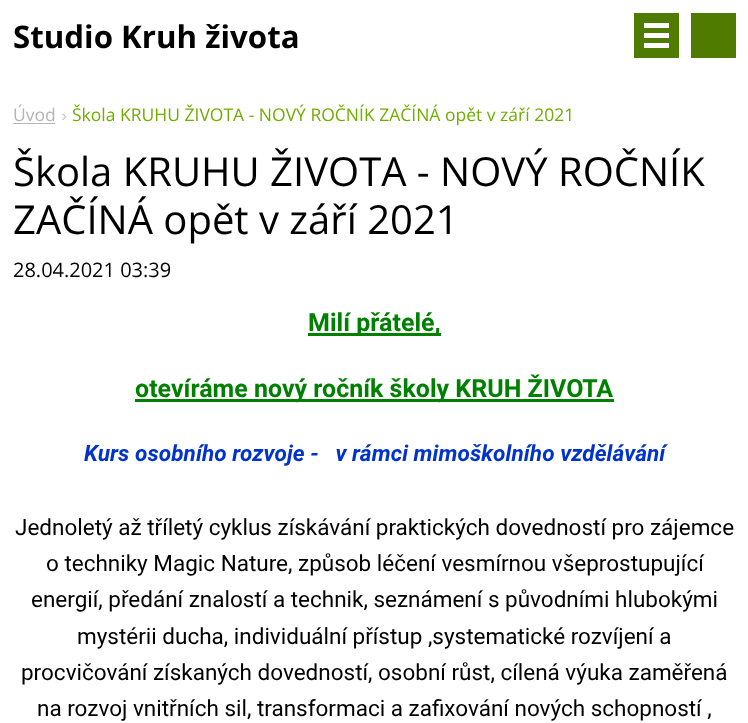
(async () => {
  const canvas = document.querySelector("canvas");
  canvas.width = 748;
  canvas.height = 723;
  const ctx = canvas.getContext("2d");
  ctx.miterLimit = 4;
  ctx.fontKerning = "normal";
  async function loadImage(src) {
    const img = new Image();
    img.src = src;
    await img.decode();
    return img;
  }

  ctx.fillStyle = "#ffffff";
  ctx.fillRect(0, 0, 748, 723);
  for (const [x, y, w, h, color] of [
    [634, 13, 45, 45, "#4e7b00"],
    [644, 23, 25, 5, "#ffffff"],
    [644, 43, 25, 5, "#ffffff"],
    [644, 33, 25, 5, "#ffffff"],
    [691, 13, 45, 45, "#4e7b00"],
    [13, 123, 42, 1, "#b5b5b5"],
  ]) {
    ctx.fillStyle = color;
    ctx.fillRect(x, y, w, h);
  }
  ctx.drawImage(await loadImage("img/1.png"), 62, 113, 5, 7);
  ctx.fillStyle = "#008000";
  ctx.fillRect(308, 333, 133, 3);
  ctx.fillRect(135, 399, 479, 3);
  ctx.font = "bold 31.25px Open Sans";
  ctx.fillStyle = "#000000";
  ctx.fillText("Studio Kruh života", 13, 48);
  ctx.font = "17.5px Open Sans";
  ctx.fillStyle = "#b5b5b5";
  ctx.fillText("Úvod", 13, 121);
  ctx.fillStyle = "#6fae00";
  ctx.fillText("Škola KRUHU ŽIVOTA - NOVÝ ROČNÍK ZAČÍNÁ opět v září 2021", 72, 121);
  ctx.font = "40px Open Sans";
  ctx.fillStyle = "#000000";
  ctx.fillText("Škola KRUHU ŽIVOTA - NOVÝ ROČNÍK", 13, 186);
  ctx.fillText("ZAČÍNÁ opět v září 2021", 13, 234);
  ctx.font = "20px Open Sans";
  ctx.fillText("28.04.2021 03:39", 13, 277);
  ctx.font = "bold 25px Roboto";
  ctx.fillStyle = "#008000";
  ctx.fillText("Milí přátelé,", 308, 331);
  ctx.fillText("otevíráme nový ročník školy KRUH ŽIVOTA", 135, 397);
  ctx.font = "italic bold 22.5px Roboto";
  ctx.fillStyle = "#0033cc";
  ctx.fillText("Kurs osobního rozvoje -   v rámci mimoškolního vzdělávání", 84, 461);
  ctx.font = "22.5px Roboto";
  ctx.fillStyle = "#000000";
  for (const [text, x, y] of [
    ["Jednoletý až tříletý cyklus získávání praktických dovedností pro zájemce", 15, 535],
    ["o techniky Magic Nature, způsob léčení vesmírnou všeprostupující", 46, 571],
    ["energií, předání znalostí a technik, seznámení s původními hlubokými", 31, 607],
    ["mystérii ducha, individuální přístup ,systematické rozvíjení a", 77, 644],
    ["procvičování získaných dovedností, osobní růst, cílená výuka zaměřená", 21, 680],
    ["na rozvoj vnitřních sil, transformaci a zafixování nových schopností ,", 37, 716],
  ]) {
    ctx.fillText(text, x, y);
  }
})();
